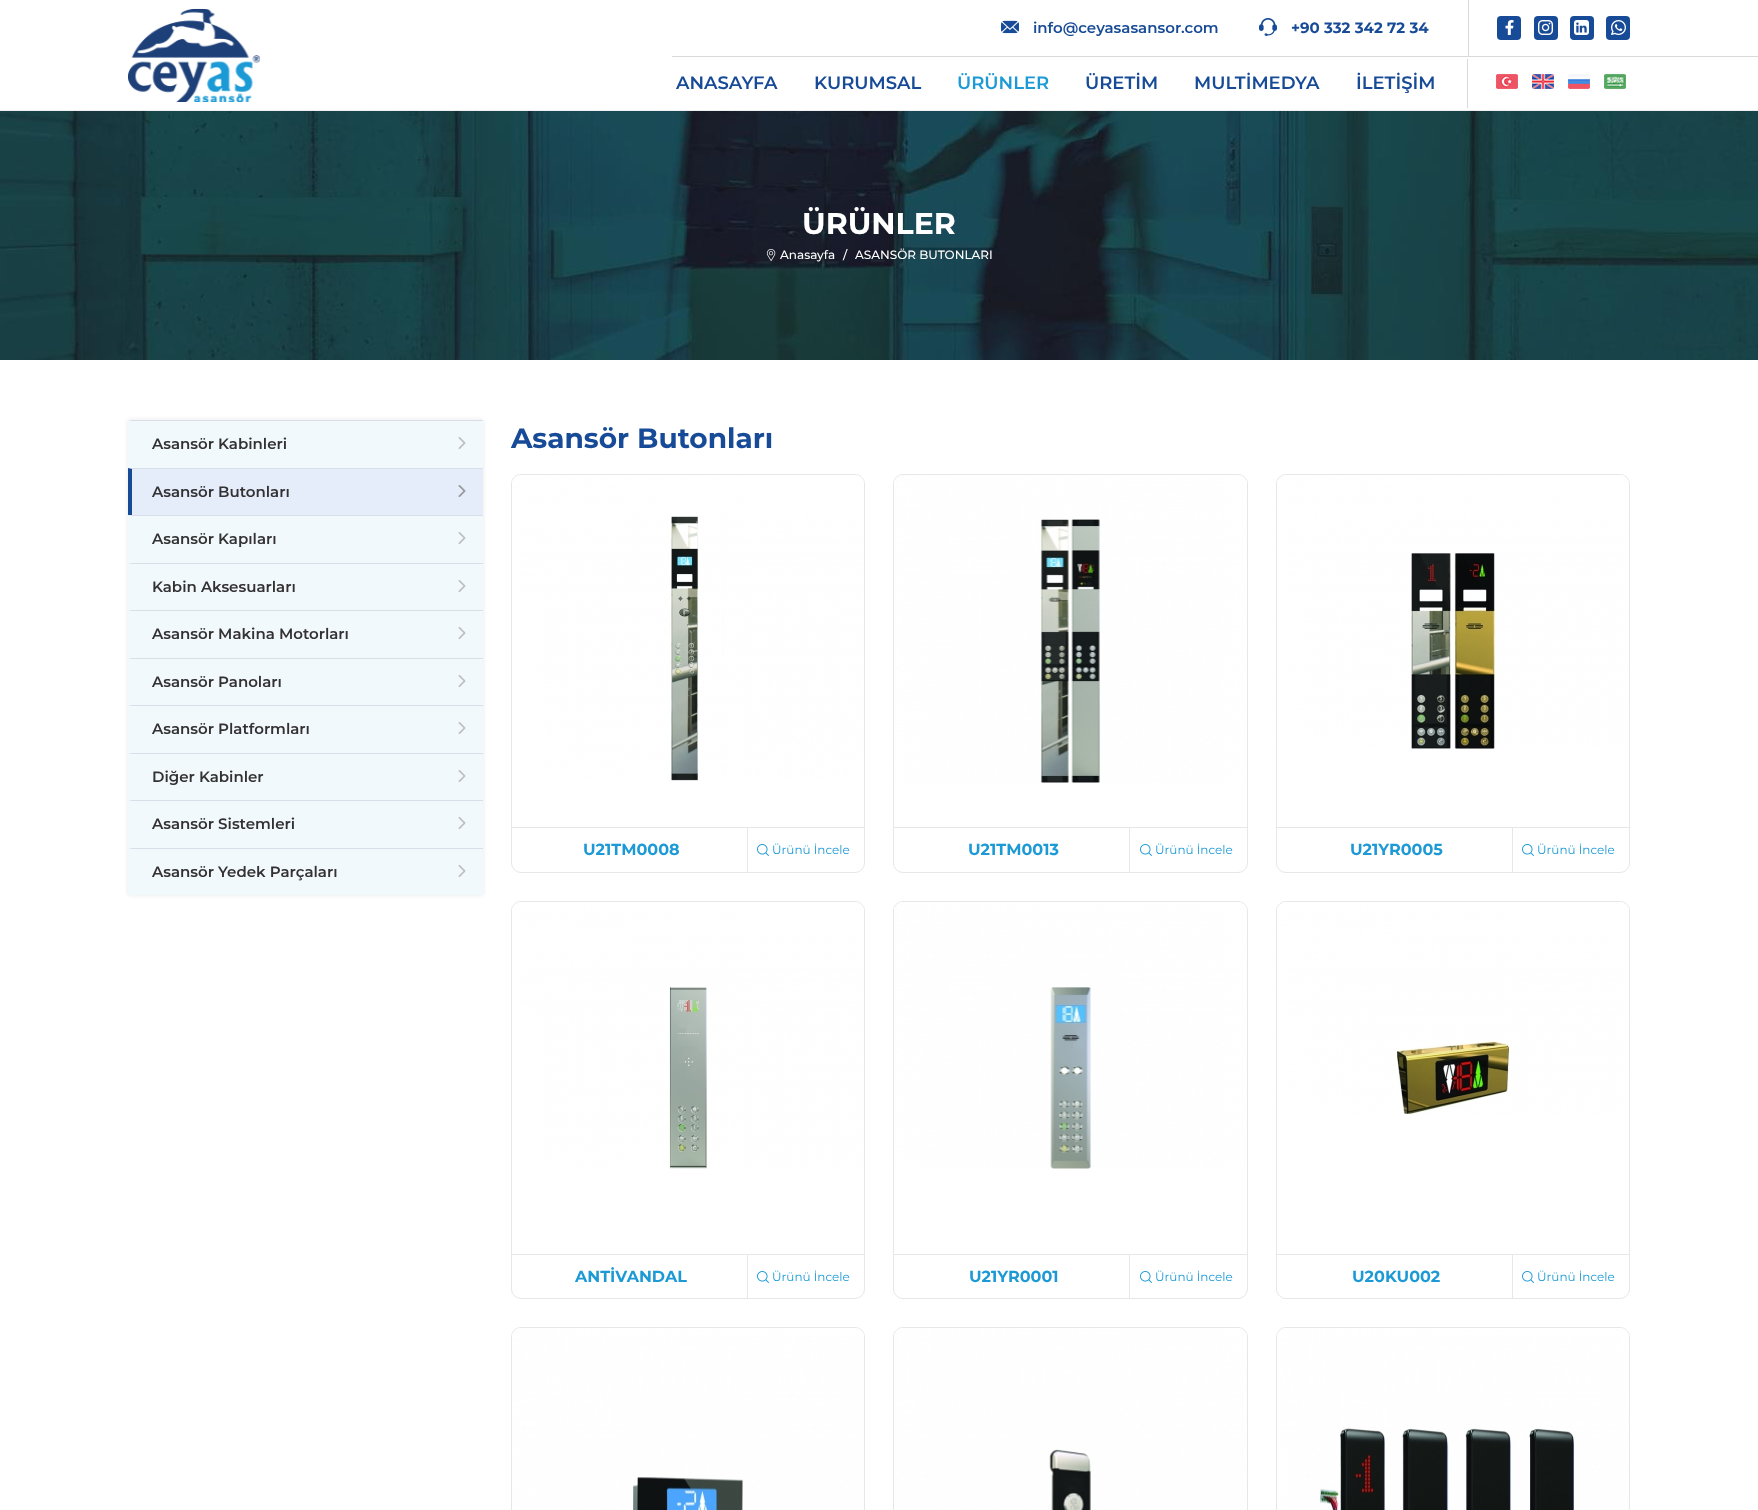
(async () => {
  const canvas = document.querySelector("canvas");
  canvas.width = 1758;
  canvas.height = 1510;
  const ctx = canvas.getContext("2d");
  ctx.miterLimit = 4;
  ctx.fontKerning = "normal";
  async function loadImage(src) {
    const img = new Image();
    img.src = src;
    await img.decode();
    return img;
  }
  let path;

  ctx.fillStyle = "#ffffff";
  ctx.fillRect(0, 0, 1758, 1510);
  ctx.fillStyle = "#efeff0";
  ctx.fillRect(0, 110, 1758, 1);
  ctx.drawImage(await loadImage("img/1.png"), 128, 8, 132, 94);
  ctx.drawImage(await loadImage("img/2.png"), 1001, 20, 18, 14);
  ctx.drawImage(await loadImage("img/3.png"), 1259, 18, 18, 18);
  ctx.fillStyle = "#d9d9da";
  ctx.fillRect(1468, 0, 1, 56);
  ctx.fillStyle = "#184b97";
  ctx.beginPath();
  ctx.roundRect(1497, 16, 24, 24, 4);
  ctx.fill();
  ctx.drawImage(await loadImage("img/4.png"), 1505, 20, 9, 15);
  ctx.beginPath();
  ctx.roundRect(1534, 16, 24, 24, 4);
  ctx.fill();
  ctx.drawImage(await loadImage("img/5.png"), 1538, 20, 15, 15);
  ctx.beginPath();
  ctx.roundRect(1570, 16, 24, 24, 4);
  ctx.fill();
  ctx.drawImage(await loadImage("img/6.png"), 1574, 20, 15, 15);
  ctx.beginPath();
  ctx.roundRect(1606, 16, 24, 24, 4);
  ctx.fill();
  ctx.drawImage(await loadImage("img/7.png"), 1611, 20, 15, 15);
  ctx.fillStyle = "#d9d9da";
  ctx.fillRect(672, 56, 1086, 1);
  ctx.fillRect(1467, 59, 1, 49);
  ctx.drawImage(await loadImage("img/8.png"), 1496, 74, 22, 15);
  ctx.drawImage(await loadImage("img/9.png"), 1532, 74, 22, 15);
  ctx.drawImage(await loadImage("img/10.png"), 1568, 74, 22, 15);
  ctx.drawImage(await loadImage("img/11.png"), 1604, 74, 22, 15);
  ctx.drawImage(await loadImage("img/12.png"), 0, 111, 1758, 249);
  ctx.drawImage(await loadImage("img/13.png"), 766, 249, 10, 12);
  ctx.fillStyle = "#e6e6e6";
  ctx.filter = "blur(2px)";
  ctx.beginPath();
  ctx.rect(128, 420, 355, 475);
  ctx.fill();
  ctx.filter = "none";
  ctx.fillStyle = "#f2f9fd";
  ctx.fillRect(128, 420, 355, 48);
  ctx.fillStyle = "#dadee8";
  path = new Path2D("M128 420H483V421H132Z");
  ctx.fill(path);
  ctx.drawImage(await loadImage("img/14.png"), 458, 437, 8, 12);
  ctx.fillStyle = "#e5edfb";
  ctx.fillRect(128, 468, 355, 47);
  ctx.fillStyle = "#dadee8";
  path = new Path2D("M128 468H483V469H132Z");
  ctx.fill(path);
  ctx.fillStyle = "#184b97";
  path = new Path2D("M128 515V468L132 469V515Z");
  ctx.fill(path);
  ctx.drawImage(await loadImage("img/15.png"), 458, 485, 8, 12);
  ctx.fillStyle = "#f2f9fd";
  ctx.fillRect(128, 515, 355, 380);
  ctx.fillStyle = "#dadee8";
  path = new Path2D("M128 515H483V516H132Z");
  ctx.fill(path);
  ctx.drawImage(await loadImage("img/14.png"), 458, 532, 8, 12);
  path = new Path2D("M128 563H483V564H132Z");
  ctx.fill(path);
  ctx.drawImage(await loadImage("img/14.png"), 458, 580, 8, 12);
  path = new Path2D("M128 610H483V611H132Z");
  ctx.fill(path);
  ctx.drawImage(await loadImage("img/14.png"), 458, 627, 8, 12);
  path = new Path2D("M128 658H483V659H132Z");
  ctx.fill(path);
  ctx.drawImage(await loadImage("img/14.png"), 458, 675, 8, 12);
  path = new Path2D("M128 705H483V706H132Z");
  ctx.fill(path);
  ctx.drawImage(await loadImage("img/14.png"), 458, 722, 8, 12);
  path = new Path2D("M128 753H483V754H132Z");
  ctx.fill(path);
  ctx.drawImage(await loadImage("img/14.png"), 458, 770, 8, 12);
  path = new Path2D("M128 800H483V801H132Z");
  ctx.fill(path);
  ctx.drawImage(await loadImage("img/14.png"), 458, 817, 8, 12);
  path = new Path2D("M128 848H483V849H132Z");
  ctx.fill(path);
  ctx.drawImage(await loadImage("img/14.png"), 458, 865, 8, 12);
  ctx.beginPath();
  ctx.roundRect(511.5, 474.5, 353, 398, 9.5);
  ctx.strokeStyle = "#e6e7e8";
  ctx.stroke();
  ctx.drawImage(await loadImage("img/16.png"), 512, 475, 352, 306);
  ctx.fillStyle = "#e6e7e8";
  ctx.fillRect(512, 827, 352, 1);
  ctx.fillRect(747, 828, 1, 44);
  ctx.drawImage(await loadImage("img/17.png"), 757, 844, 12, 12);
  ctx.beginPath();
  ctx.roundRect(893.5, 474.5, 354, 398, 9.5);
  ctx.stroke();
  ctx.drawImage(await loadImage("img/18.png"), 894, 475, 353, 308);
  ctx.fillRect(894, 827, 353, 1);
  ctx.fillRect(1129, 828, 1, 44);
  ctx.drawImage(await loadImage("img/17.png"), 1140, 844, 12, 12);
  ctx.beginPath();
  ctx.roundRect(1276.5, 474.5, 353, 398, 9.5);
  ctx.stroke();
  ctx.drawImage(await loadImage("img/19.png"), 1277, 475, 352, 274);
  ctx.fillRect(1277, 827, 352, 1);
  ctx.fillRect(1512, 828, 1, 44);
  ctx.drawImage(await loadImage("img/17.png"), 1522, 844, 12, 12);
  ctx.beginPath();
  ctx.roundRect(511.5, 901.5, 353, 397, 9.5);
  ctx.stroke();
  ctx.drawImage(await loadImage("img/20.png"), 512, 902, 352, 267);
  ctx.fillRect(512, 1254, 352, 1);
  ctx.fillRect(747, 1255, 1, 43);
  ctx.drawImage(await loadImage("img/17.png"), 757, 1271, 12, 12);
  ctx.beginPath();
  ctx.roundRect(893.5, 901.5, 354, 397, 9.5);
  ctx.stroke();
  ctx.drawImage(await loadImage("img/21.png"), 894, 902, 353, 267);
  ctx.fillRect(894, 1254, 353, 1);
  ctx.fillRect(1129, 1255, 1, 43);
  ctx.drawImage(await loadImage("img/17.png"), 1140, 1271, 12, 12);
  ctx.beginPath();
  ctx.roundRect(1276.5, 901.5, 353, 397, 9.5);
  ctx.stroke();
  ctx.drawImage(await loadImage("img/22.png"), 1277, 902, 352, 213);
  ctx.fillRect(1277, 1254, 352, 1);
  ctx.fillRect(1512, 1255, 1, 43);
  ctx.drawImage(await loadImage("img/17.png"), 1522, 1271, 12, 12);
  ctx.beginPath();
  ctx.roundRect(511.5, 1327.5, 353, 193, 9.5);
  ctx.stroke();
  ctx.drawImage(await loadImage("img/23.png"), 512, 1328, 352, 182);
  ctx.beginPath();
  ctx.roundRect(893.5, 1327.5, 354, 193, 9.5);
  ctx.stroke();
  ctx.drawImage(await loadImage("img/24.png"), 894, 1328, 353, 182);
  ctx.beginPath();
  ctx.roundRect(1276.5, 1327.5, 353, 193, 9.5);
  ctx.stroke();
  ctx.drawImage(await loadImage("img/25.png"), 1277, 1328, 352, 182);
  ctx.font = "600 15px Montserrat";
  ctx.fillStyle = "#184b97";
  ctx.fillText("info@ceyasasansor.com", 1033, 33);
  ctx.font = "bold 15px Montserrat";
  ctx.fillText("+90 332 342 72 34", 1291, 33);
  ctx.font = "600 18px Montserrat";
  ctx.fillText("ANASAYFA", 676, 89);
  ctx.fillText("KURUMSAL", 814, 89);
  ctx.fillStyle = "#1d9ad6";
  ctx.fillText("ÜRÜNLER", 957, 89);
  ctx.fillStyle = "#184b97";
  for (const [text, x, y] of [
    ["ÜRETİM", 1085, 89],
    ["MULTİMEDYA", 1194, 89],
    ["İLETİŞİM", 1356, 89],
  ]) {
    ctx.fillText(text, x, y);
  }
  ctx.font = "bold 30px Montserrat";
  ctx.fillStyle = "#ffffff";
  ctx.fillText("ÜRÜNLER", 802, 234);
  ctx.font = "500 12px Montserrat";
  for (const [text, x, y] of [
    ["Anasayfa", 780, 259],
    ["/", 843, 259],
    ["ASANSÖR BUTONLARI", 855, 259],
  ]) {
    ctx.fillText(text, x, y);
  }
  ctx.font = "600 15px Montserrat";
  ctx.fillStyle = "#333132";
  for (const [text, x, y] of [
    ["Asansör Kabinleri", 152, 449],
    ["Asansör Butonları", 152, 497],
    ["Asansör Kapıları", 152, 544],
    ["Kabin Aksesuarları", 152, 592],
    ["Asansör Makina Motorları", 152, 639],
    ["Asansör Panoları", 152, 687],
    ["Asansör Platformları", 152, 734],
    ["Diğer Kabinler", 152, 782],
    ["Asansör Sistemleri", 152, 829],
    ["Asansör Yedek Parçaları", 152, 877],
  ]) {
    ctx.fillText(text, x, y);
  }
  ctx.font = "bold 28px Montserrat";
  ctx.fillStyle = "#184b97";
  ctx.fillText("Asansör Butonları", 511, 448);
  ctx.font = "bold 16px Montserrat";
  ctx.fillStyle = "#1d9ad6";
  ctx.fillText("U21TM0008", 583, 855);
  ctx.font = "12px Montserrat";
  ctx.fillText("Ürünü İncele", 772, 854);
  ctx.font = "bold 16px Montserrat";
  ctx.fillText("U21TM0013", 968, 855);
  ctx.font = "12px Montserrat";
  ctx.fillText("Ürünü İncele", 1155, 854);
  ctx.font = "bold 16px Montserrat";
  ctx.fillText("U21YR0005", 1350, 855);
  ctx.font = "12px Montserrat";
  ctx.fillText("Ürünü İncele", 1537, 854);
  ctx.font = "bold 16px Montserrat";
  ctx.fillText("ANTİVANDAL", 575, 1282);
  ctx.font = "12px Montserrat";
  ctx.fillText("Ürünü İncele", 772, 1281);
  ctx.font = "bold 16px Montserrat";
  ctx.fillText("U21YR0001", 969, 1282);
  ctx.font = "12px Montserrat";
  ctx.fillText("Ürünü İncele", 1155, 1281);
  ctx.font = "bold 16px Montserrat";
  ctx.fillText("U20KU002", 1352, 1282);
  ctx.font = "12px Montserrat";
  ctx.fillText("Ürünü İncele", 1537, 1281);
})();
